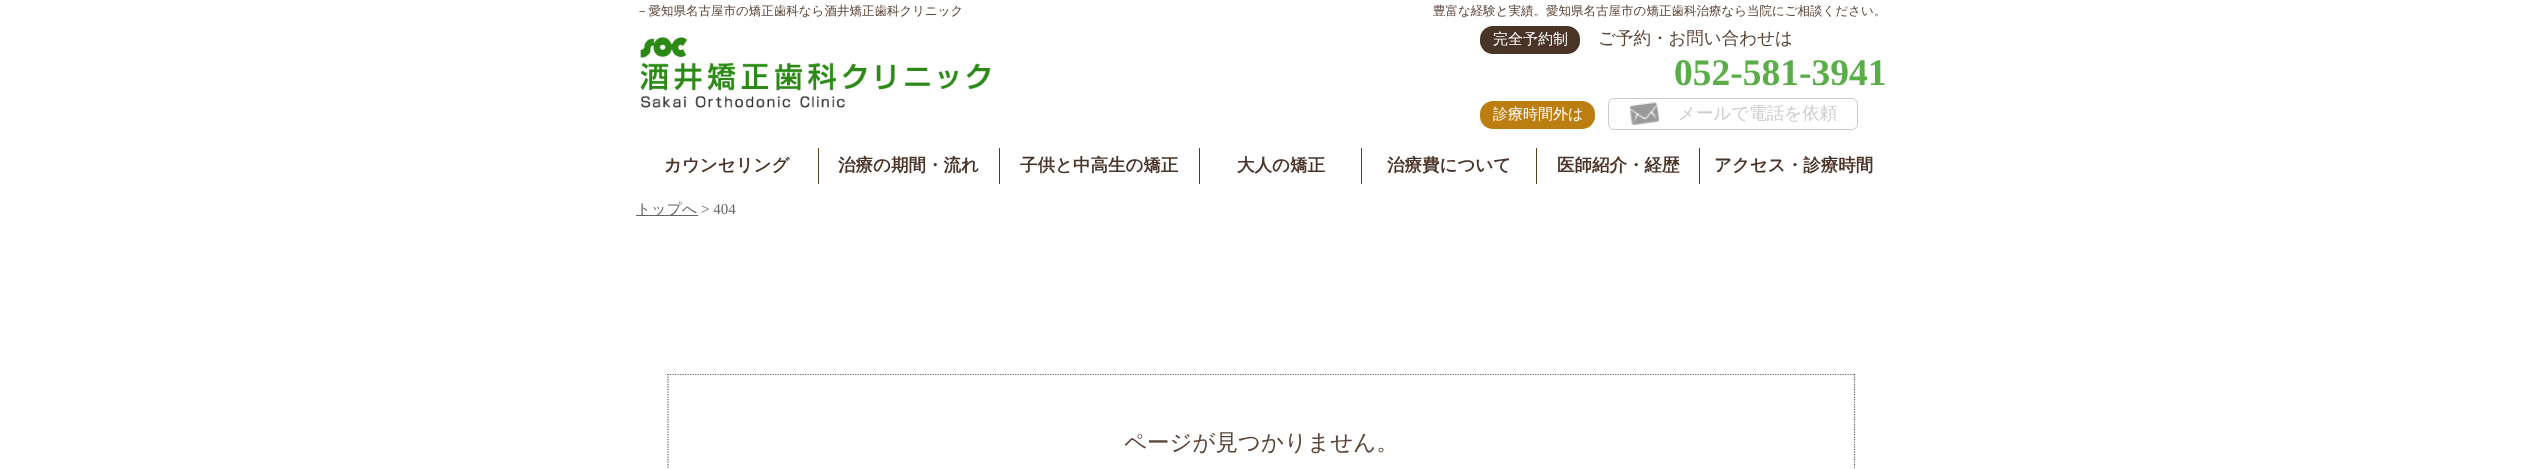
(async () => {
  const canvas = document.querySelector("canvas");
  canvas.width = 2522;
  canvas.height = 469;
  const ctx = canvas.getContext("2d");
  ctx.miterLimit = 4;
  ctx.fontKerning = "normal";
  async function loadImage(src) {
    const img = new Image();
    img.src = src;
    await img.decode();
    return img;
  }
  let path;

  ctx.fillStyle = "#ffffff";
  ctx.fillRect(0, 0, 2522, 469);
  ctx.drawImage(await loadImage("img/1.png"), 640, 37, 351, 71);
  ctx.fillStyle = "#4a3427";
  ctx.beginPath();
  ctx.roundRect(1480, 26, 100, 28, 13);
  ctx.fill();
  ctx.fillStyle = "#bd7e11";
  ctx.beginPath();
  ctx.roundRect(1480, 101, 115, 28, 13);
  ctx.fill();
  ctx.beginPath();
  ctx.roundRect(1608.5, 98.5, 249, 31, 5.5);
  ctx.strokeStyle = "#cccccc";
  ctx.stroke();
  ctx.drawImage(await loadImage("img/2.png"), 1629, 102, 31, 23);
  for (const [x, y, w, h, color] of [
    [818, 148, 1, 36, "#563c22"],
    [999, 148, 1, 36, "#563c22"],
    [1199, 148, 1, 36, "#563c22"],
    [1361, 148, 1, 36, "#563c22"],
    [1536, 148, 1, 36, "#563c22"],
    [1699, 148, 1, 36, "#563c22"],
    [636, 215, 62, 1, "#666666"],
  ]) {
    ctx.fillStyle = color;
    ctx.fillRect(x, y, w, h);
  }
  path = new Path2D("M667.5 374.5H1855");
  ctx.strokeStyle = "#666666";
  ctx.lineWidth = 1.2;
  ctx.setLineDash([1.25, 1.25]);
  ctx.stroke(path);
  path = new Path2D("M1854.5 374V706");
  ctx.stroke(path);
  path = new Path2D("M668 374V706");
  ctx.stroke(path);
  ctx.font = "500 12.5px WenQuanYi Zen Hei";
  ctx.fillStyle = "#5b4436";
  ctx.fillText("－愛知県名古屋市の矯正歯科なら酒井矯正歯科クリニック", 636, 15);
  ctx.fillText("豊富な経験と実績。愛知県名古屋市の矯正歯科治療なら当院にご相談ください。", 1433, 15);
  ctx.font = "500 15px WenQuanYi Zen Hei";
  ctx.fillStyle = "#ffffff";
  ctx.fillText("完全予約制", 1493, 44);
  ctx.font = "500 17.5px WenQuanYi Zen Hei";
  ctx.fillStyle = "#5b4436";
  ctx.fillText("ご予約・お問い合わせは", 1598, 44);
  ctx.font = "bold 37.5px Liberation Serif";
  ctx.fillStyle = "#5aae48";
  ctx.fillText("052-581-3941", 1674, 85);
  ctx.font = "500 15px WenQuanYi Zen Hei";
  ctx.fillStyle = "#ffffff";
  ctx.fillText("診療時間外は", 1493, 119);
  ctx.font = "500 17.5px WenQuanYi Zen Hei";
  ctx.fillStyle = "#cccccc";
  ctx.fillText("メールで電話を依頼", 1678, 119);
  ctx.font = "bold 17.5px WenQuanYi Zen Hei";
  ctx.fillStyle = "#4a3427";
  for (const [text, x, y] of [
    ["カウンセリング", 664, 171],
    ["治療の期間・流れ", 838, 171],
    ["子供と中高生の矯正", 1020, 171],
    ["大人の矯正", 1237, 171],
    ["治療費について", 1387, 171],
    ["医師紹介・経歴", 1557, 171],
    ["アクセス・診療時間", 1714, 171],
  ]) {
    ctx.fillText(text, x, y);
  }
  ctx.font = "500 15px WenQuanYi Zen Hei";
  ctx.fillStyle = "#666666";
  ctx.fillText("トップへ", 636, 214);
  ctx.font = "15px Liberation Serif";
  ctx.fillText("> 404", 701, 214);
  ctx.font = "500 22.5px WenQuanYi Zen Hei";
  ctx.fillStyle = "#5b4436";
  ctx.fillText("ページが見つかりません。", 1124, 450);
})();
